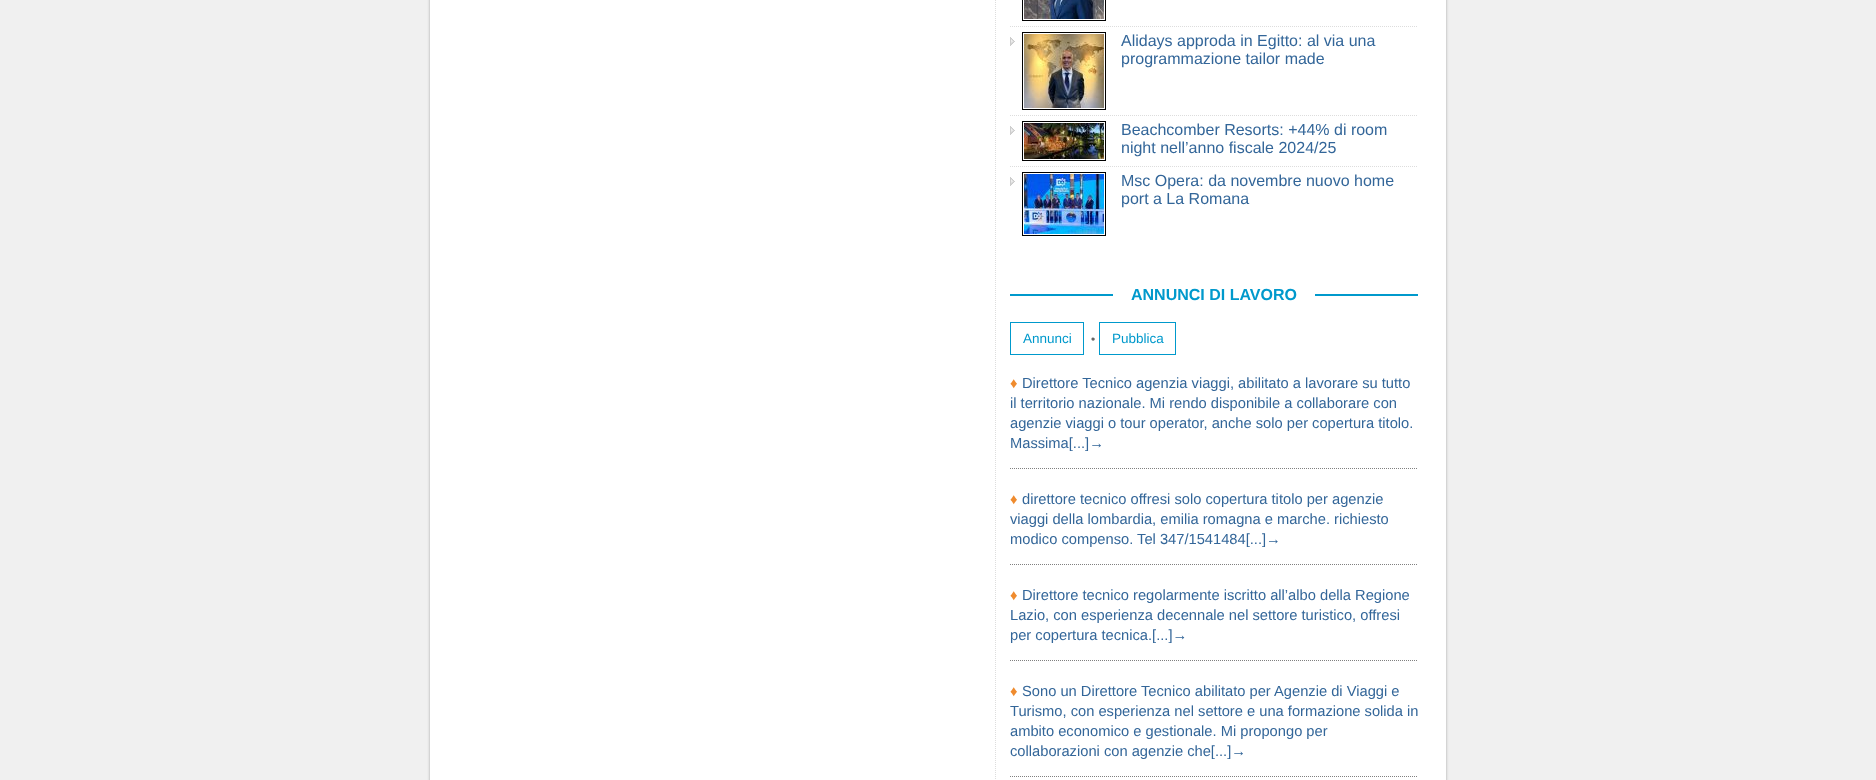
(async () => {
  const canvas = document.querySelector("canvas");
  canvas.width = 1876;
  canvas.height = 780;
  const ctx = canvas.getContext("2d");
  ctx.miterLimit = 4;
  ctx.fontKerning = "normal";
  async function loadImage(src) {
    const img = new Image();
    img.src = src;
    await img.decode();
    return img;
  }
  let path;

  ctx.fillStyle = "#f0f0f0";
  ctx.fillRect(0, 0, 1876, 780);
  ctx.fillStyle = "rgba(0, 0, 0, 0.3)";
  ctx.filter = "blur(1.5px)";
  ctx.beginPath();
  ctx.roundRect(430, -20, 1016, 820, 15);
  ctx.fill();
  ctx.filter = "none";
  ctx.fillStyle = "#ffffff";
  ctx.fillRect(430, 0, 1016, 780);
  ctx.drawImage(await loadImage("img/1.png"), 995, 0, 1, 779);
  path = new Path2D("M1010 26.5H1418");
  ctx.strokeStyle = "#dddddd";
  ctx.setLineDash([1, 1]);
  ctx.stroke(path);
  ctx.strokeStyle = "#000000";
  ctx.setLineDash([]);
  ctx.strokeRect(1022.5, -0.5, 83, 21);
  ctx.drawImage(await loadImage("img/2.png"), 1024, 0, 80, 19);
  ctx.drawImage(await loadImage("img/3.png"), 1010, 37, 5, 9);
  path = new Path2D("M1010 115.5H1418");
  ctx.strokeStyle = "#dddddd";
  ctx.setLineDash([1, 1]);
  ctx.stroke(path);
  ctx.strokeStyle = "#000000";
  ctx.setLineDash([]);
  ctx.strokeRect(1022.5, 32.5, 83, 77);
  ctx.drawImage(await loadImage("img/4.png"), 1024, 34, 80, 74);
  ctx.drawImage(await loadImage("img/3.png"), 1010, 126, 5, 9);
  path = new Path2D("M1010 166.5H1418");
  ctx.strokeStyle = "#dddddd";
  ctx.setLineDash([1, 1]);
  ctx.stroke(path);
  ctx.strokeStyle = "#000000";
  ctx.setLineDash([]);
  ctx.strokeRect(1022.5, 121.5, 83, 39);
  ctx.drawImage(await loadImage("img/5.png"), 1024, 123, 80, 36);
  ctx.drawImage(await loadImage("img/3.png"), 1010, 177, 5, 9);
  ctx.strokeRect(1022.5, 172.5, 83, 63);
  ctx.drawImage(await loadImage("img/6.png"), 1024, 174, 80, 60);
  ctx.fillStyle = "#0099cc";
  ctx.fillRect(1010, 294, 408, 2);
  ctx.fillStyle = "#ffffff";
  ctx.fillRect(1113, 294, 202, 2);
  ctx.strokeStyle = "#0099cc";
  ctx.strokeRect(1010.5, 322.5, 73, 32);
  ctx.strokeRect(1099.5, 322.5, 76, 32);
  path = new Path2D("M1010 468.5H1418");
  ctx.strokeStyle = "#808080";
  ctx.setLineDash([1, 1]);
  ctx.stroke(path);
  path = new Path2D("M1010 564.5H1418");
  ctx.stroke(path);
  path = new Path2D("M1010 660.5H1418");
  ctx.stroke(path);
  path = new Path2D("M1010 776.5H1418");
  ctx.stroke(path);
  ctx.font = "16px Liberation Sans";
  ctx.fillStyle = "#336699";
  for (const [text, x, y] of [
    ["Alidays approda in Egitto: al via una", 1121, 46],
    ["programmazione tailor made", 1121, 64],
    ["Beachcomber Resorts: +44% di room", 1121, 135],
    ["night nell’anno fiscale 2024/25", 1121, 153],
    ["Msc Opera: da novembre nuovo home", 1121, 186],
    ["port a La Romana", 1121, 204],
  ]) {
    ctx.fillText(text, x, y);
  }
  ctx.font = "bold 16px Liberation Sans";
  ctx.fillStyle = "#0099cc";
  ctx.fillText("ANNUNCI DI LAVORO", 1131, 300);
  ctx.font = "13.5px Liberation Sans";
  ctx.fillText("Annunci", 1023, 343);
  ctx.font = "12px Liberation Sans";
  ctx.fillStyle = "#666666";
  ctx.fillText("•", 1091, 343);
  ctx.font = "13.5px Liberation Sans";
  ctx.fillStyle = "#0099cc";
  ctx.fillText("Pubblica", 1112, 343);
  ctx.font = "14.7px Liberation Sans";
  ctx.fillStyle = "#ef8b2e";
  ctx.fillText("♦", 1010, 388);
  ctx.fillStyle = "#336699";
  for (const [text, x, y] of [
    ["Direttore Tecnico agenzia viaggi, abilitato a lavorare su tutto", 1022, 388],
    ["il territorio nazionale. Mi rendo disponibile a collaborare con", 1010, 408],
    ["agenzie viaggi o tour operator, anche solo per copertura titolo.", 1010, 428],
    ["Massima[...]→", 1010, 448],
  ]) {
    ctx.fillText(text, x, y);
  }
  ctx.fillStyle = "#ef8b2e";
  ctx.fillText("♦", 1010, 504);
  ctx.fillStyle = "#336699";
  for (const [text, x, y] of [
    ["direttore tecnico offresi solo copertura titolo per agenzie", 1022, 504],
    ["viaggi della lombardia, emilia romagna e marche. richiesto", 1010, 524],
    ["modico compenso. Tel 347/1541484[...]→", 1010, 544],
  ]) {
    ctx.fillText(text, x, y);
  }
  ctx.fillStyle = "#ef8b2e";
  ctx.fillText("♦", 1010, 600);
  ctx.fillStyle = "#336699";
  for (const [text, x, y] of [
    ["Direttore tecnico regolarmente iscritto all’albo della Regione", 1022, 600],
    ["Lazio, con esperienza decennale nel settore turistico, offresi", 1010, 620],
    ["per copertura tecnica.[...]→", 1010, 640],
  ]) {
    ctx.fillText(text, x, y);
  }
  ctx.fillStyle = "#ef8b2e";
  ctx.fillText("♦", 1010, 696);
  ctx.fillStyle = "#336699";
  for (const [text, x, y] of [
    ["Sono un Direttore Tecnico abilitato per Agenzie di Viaggi e", 1022, 696],
    ["Turismo, con esperienza nel settore e una formazione solida in", 1010, 716],
    ["ambito economico e gestionale. Mi propongo per", 1010, 736],
    ["collaborazioni con agenzie che[...]→", 1010, 756],
  ]) {
    ctx.fillText(text, x, y);
  }
})();
